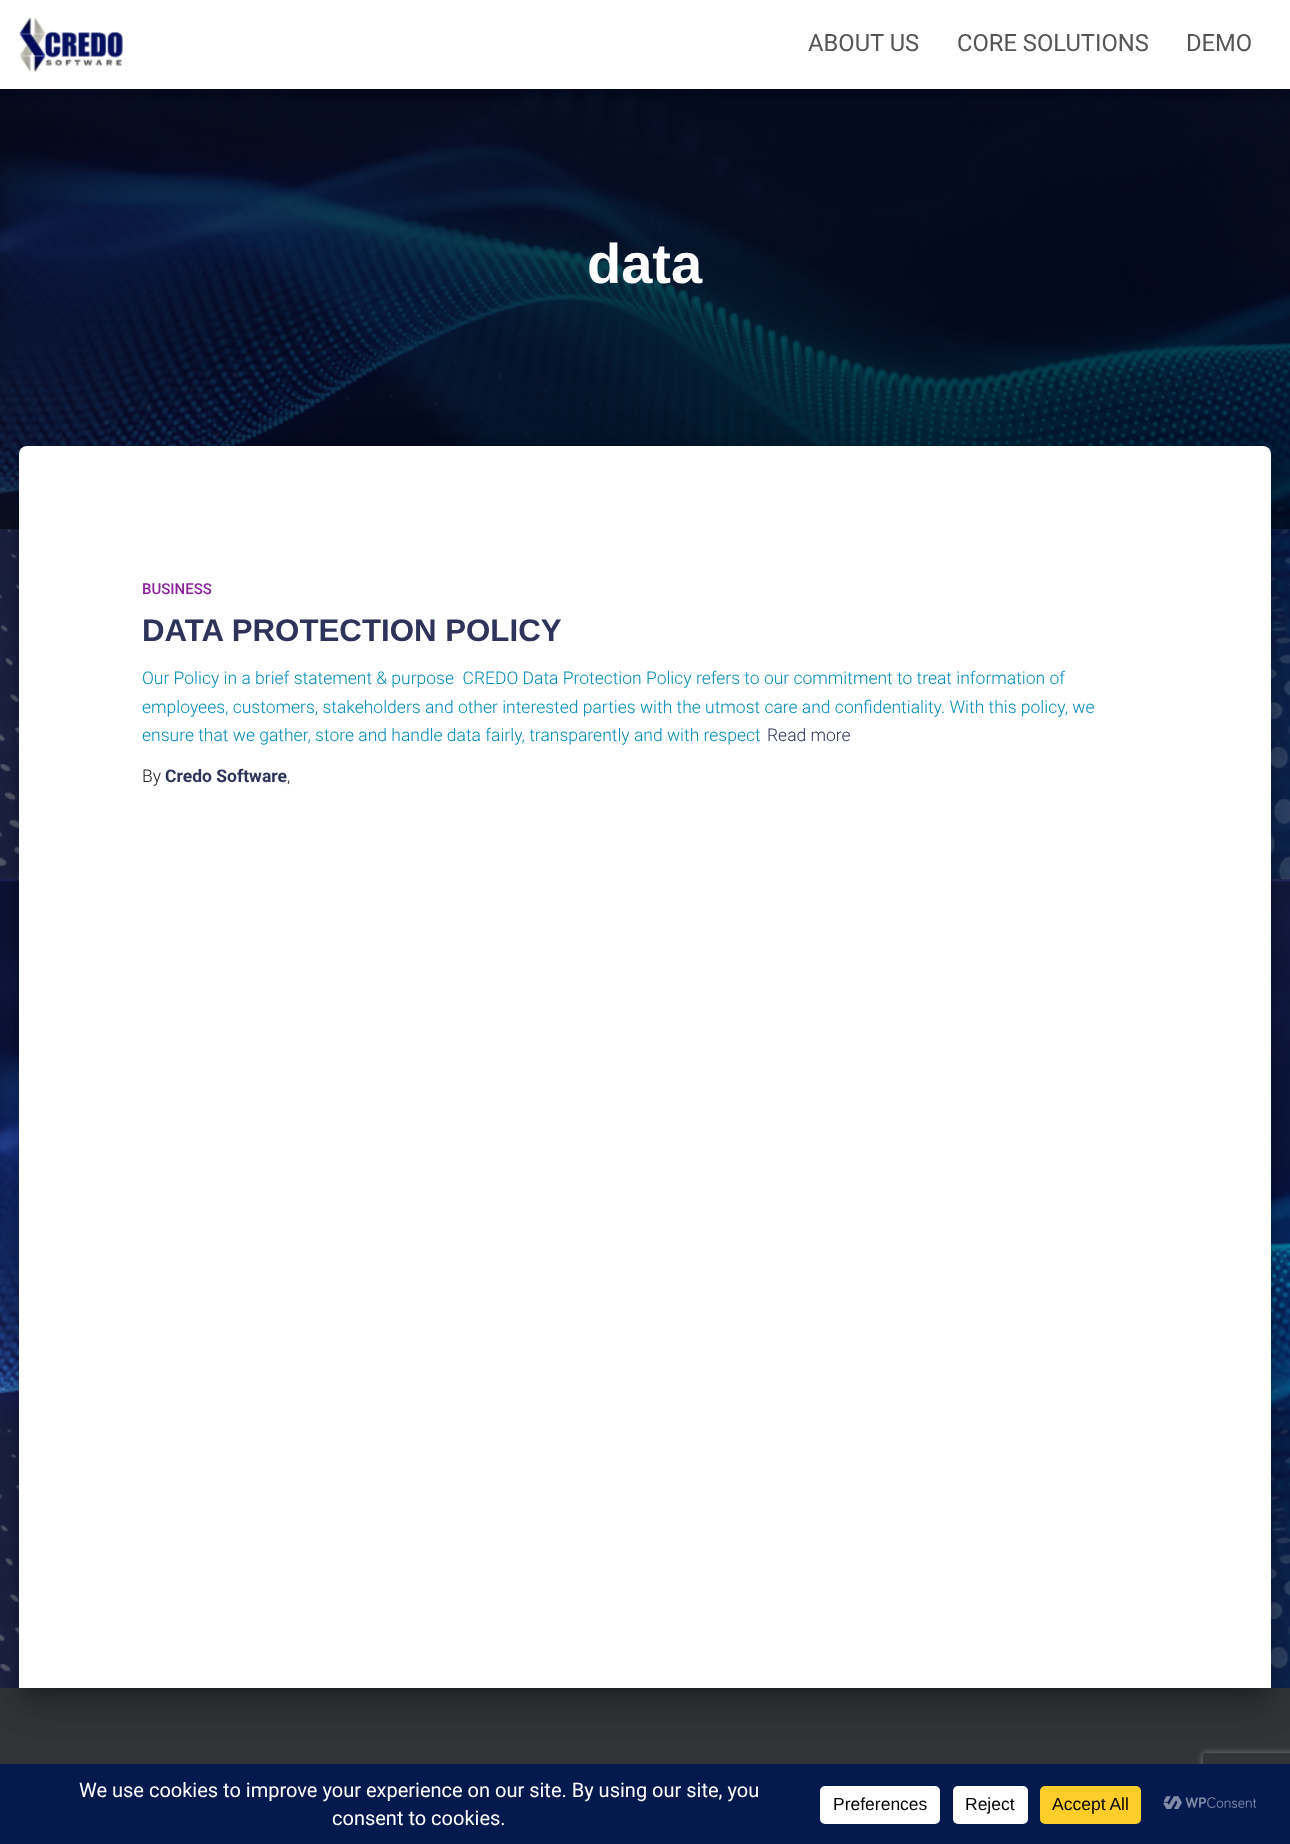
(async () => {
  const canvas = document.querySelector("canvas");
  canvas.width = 1290;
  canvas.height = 1844;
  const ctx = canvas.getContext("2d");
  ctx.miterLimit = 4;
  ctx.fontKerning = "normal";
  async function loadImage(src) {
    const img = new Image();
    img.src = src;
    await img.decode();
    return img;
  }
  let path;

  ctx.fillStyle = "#ffffff";
  ctx.fillRect(0, 0, 1290, 1844);
  ctx.drawImage(await loadImage("img/1.png"), 0, 89, 1290, 1599);
  ctx.fillStyle = "rgba(0, 0, 0, 0.5)";
  ctx.fillRect(0, 89, 1290, 440);
  ctx.fillStyle = "rgba(0, 0, 0, 0.1)";
  ctx.filter = "blur(3px)";
  ctx.beginPath();
  ctx.rect(3, 8, 1285, 83);
  ctx.fill();
  ctx.filter = "none";
  ctx.fillStyle = "rgba(0, 0, 0, 0.12)";
  ctx.filter = "blur(6px)";
  ctx.beginPath();
  ctx.rect(0, 1, 1290, 89);
  ctx.fill();
  ctx.filter = "none";
  ctx.fillStyle = "rgba(0, 0, 0, 0.42)";
  ctx.filter = "blur(6px)";
  ctx.beginPath();
  ctx.rect(8, 9, 1275, 74);
  ctx.fill();
  ctx.filter = "none";
  ctx.fillStyle = "#ffffff";
  ctx.fillRect(0, 0, 1290, 89);
  ctx.drawImage(await loadImage("img/2.png"), 19, 17, 104, 55);
  ctx.fillStyle = "#323437";
  ctx.fillRect(0, 1688, 1290, 76);
  ctx.fillStyle = "rgba(0, 0, 0, 0.2)";
  ctx.filter = "blur(6px)";
  ctx.beginPath();
  ctx.roundRect(25, 463, 1240, 1228, 1);
  ctx.fill();
  ctx.filter = "none";
  ctx.fillStyle = "rgba(0, 0, 0, 0.12)";
  ctx.filter = "blur(19px)";
  ctx.beginPath();
  ctx.roundRect(13, 448, 1265, 1253, 14);
  ctx.fill();
  ctx.filter = "none";
  ctx.fillStyle = "rgba(0, 0, 0, 0.14)";
  ctx.filter = "blur(15px)";
  ctx.beginPath();
  ctx.roundRect(16, 464, 1258, 1246, 10);
  ctx.fill();
  ctx.filter = "none";
  ctx.fillStyle = "#ffffff";
  ctx.beginPath();
  ctx.roundRect(19, 446, 1252, 1242, [8, 8, 0, 0]);
  ctx.fill();
  ctx.save();
  path = new Path2D("M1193 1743H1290V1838H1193ZM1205.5 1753H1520.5C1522 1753 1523 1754 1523 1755.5V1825.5C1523 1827 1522 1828 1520.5 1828H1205.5C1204 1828 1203 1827 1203 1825.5V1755.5C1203 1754 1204 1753 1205.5 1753Z");
  ctx.clip(path, "evenodd");
  ctx.fillStyle = "#808080";
  ctx.filter = "blur(3px)";
  ctx.beginPath();
  ctx.roundRect(1203, 1753, 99, 75, 2.5);
  ctx.fill();
  ctx.filter = "none";
  ctx.restore();
  ctx.fillStyle = "#04194e";
  ctx.fillRect(0, 1764, 1290, 80);
  ctx.fillStyle = "#ffffff";
  ctx.beginPath();
  ctx.roundRect(820, 1786, 120, 38, 5);
  ctx.fill();
  ctx.beginPath();
  ctx.roundRect(953, 1786, 75, 38, 5);
  ctx.fill();
  ctx.fillStyle = "#ffcd2a";
  ctx.beginPath();
  ctx.roundRect(1040, 1786, 101, 38, 5);
  ctx.fill();
  ctx.drawImage(await loadImage("img/3.png"), 1163, 1796, 94, 13);
  ctx.font = "23.75px Roboto";
  ctx.fillStyle = "#555555";
  for (const [text, x, y] of [
    ["ABOUT US", 808, 51],
    ["CORE SOLUTIONS", 957, 51],
    ["DEMO", 1186, 51],
  ]) {
    ctx.fillText(text, x, y);
  }
  ctx.font = "bold 56px Liberation Sans";
  ctx.fillStyle = "#ffffff";
  ctx.fillText("data", 587, 283);
  ctx.font = "500 15px Roboto";
  ctx.fillStyle = "#89229b";
  ctx.fillText("BUSINESS", 142, 594);
  ctx.font = "bold 31.25px Liberation Sans";
  ctx.fillStyle = "#2d3359";
  ctx.fillText("DATA PROTECTION POLICY", 142, 641);
  ctx.font = "300 17.5px Roboto";
  ctx.fillStyle = "#008cb7";
  for (const [text, x, y] of [
    ["Our Policy in a brief statement & purpose  CREDO Data Protection Policy refers to our commitment to treat information of", 142, 684],
    ["employees, customers, stakeholders and other interested parties with the utmost care and confidentiality. With this policy, we", 142, 713],
    ["ensure that we gather, store and handle data fairly, transparently and with respect", 142, 741],
  ]) {
    ctx.fillText(text, x, y);
  }
  ctx.fillStyle = "#2d3359";
  ctx.fillText("Read more", 767, 741);
  ctx.fillStyle = "#212121";
  ctx.fillText("By", 142, 782);
  ctx.font = "bold 17.5px Roboto";
  ctx.fillStyle = "#2d3359";
  ctx.fillText("Credo Software", 165, 782);
  ctx.font = "300 17.5px Roboto";
  ctx.fillStyle = "#212121";
  ctx.fillText(",", 287, 782);
  ctx.font = "20px Roboto";
  ctx.fillStyle = "#ffffff";
  ctx.fillText("We use cookies to improve your experience on our site. By using our site, you", 79, 1797);
  ctx.fillText("consent to cookies.", 332, 1825);
  ctx.font = "17.5px Liberation Sans";
  ctx.fillStyle = "#000000";
  for (const [text, x, y] of [
    ["Preferences", 833, 1810],
    ["Reject", 965, 1810],
    ["Accept All", 1052, 1810],
  ]) {
    ctx.fillText(text, x, y);
  }
})();
